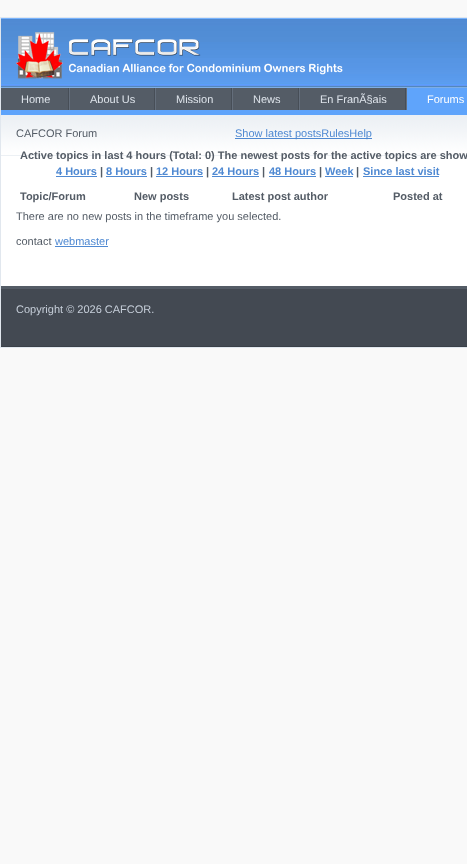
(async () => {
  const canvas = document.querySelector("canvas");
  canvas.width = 467;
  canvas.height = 864;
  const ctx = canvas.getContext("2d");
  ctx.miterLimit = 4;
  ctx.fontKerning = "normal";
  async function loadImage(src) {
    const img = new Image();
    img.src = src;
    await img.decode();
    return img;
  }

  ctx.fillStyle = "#f9f9f9";
  ctx.fillRect(0, 0, 467, 864);
  ctx.strokeStyle = "#e1e7ee";
  ctx.strokeRect(0.5, 17.5, 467, 330);
  ctx.drawImage(await loadImage("img/1.png"), 1, 18, 466, 70);
  ctx.drawImage(await loadImage("img/2.png"), 16, 32, 327, 47);
  ctx.fillStyle = "#5fa4fb";
  ctx.fillRect(1, 110, 466, 5);
  ctx.fillStyle = "#545c66";
  ctx.fillRect(1, 88, 404, 22);
  ctx.drawImage(await loadImage("img/3.png"), 68, 88, 2, 22);
  ctx.drawImage(await loadImage("img/3.png"), 154, 88, 2, 22);
  ctx.drawImage(await loadImage("img/3.png"), 231, 88, 2, 22);
  ctx.drawImage(await loadImage("img/3.png"), 298, 88, 2, 22);
  ctx.drawImage(await loadImage("img/3.png"), 405, 88, 2, 22);
  ctx.fillStyle = "#5fa4fb";
  ctx.fillRect(407, 88, 60, 22);
  ctx.fillStyle = "#ffffff";
  ctx.fillRect(1, 156, 466, 130);
  ctx.drawImage(await loadImage("img/4.png"), 1, 115, 466, 41);
  for (const [x, y, w, h, color] of [
    [235, 138, 137, 1, "#4f89d2"],
    [56, 176, 41, 1, "#4f89d2"],
    [106, 176, 41, 1, "#4f89d2"],
    [156, 176, 47, 1, "#4f89d2"],
    [212, 176, 47, 1, "#4f89d2"],
    [269, 176, 47, 1, "#4f89d2"],
    [325, 176, 28, 1, "#4f89d2"],
    [363, 176, 76, 1, "#4f89d2"],
    [55, 246, 53, 1, "#4f89d2"],
    [1, 289, 466, 57, "#434952"],
    [1, 286, 466, 3, "#545c66"],
    [1, 346, 466, 1, "#3a4048"],
  ]) {
    ctx.fillStyle = color;
    ctx.fillRect(x, y, w, h);
  }
  ctx.font = "11px Liberation Sans";
  ctx.fillStyle = "#dfe5ec";
  for (const [text, x, y] of [
    ["Home", 21, 103],
    ["About Us", 90, 103],
    ["Mission", 176, 103],
    ["News", 253, 103],
    ["En FranÃ§ais", 320, 103],
  ]) {
    ctx.fillText(text, x, y);
  }
  ctx.fillStyle = "#ffffff";
  ctx.fillText("Forums", 427, 103);
  ctx.fillStyle = "#545c66";
  ctx.fillText("CAFCOR Forum", 16, 137);
  ctx.fillStyle = "#4f89d2";
  ctx.fillText("Show latest postsRulesHelp", 235, 137);
  ctx.font = "bold 11px Liberation Sans";
  ctx.fillStyle = "#545c66";
  ctx.fillText("Active topics in last 4 hours (Total: 0) The newest posts for the active topics are show", 20, 159);
  ctx.fillStyle = "#4f89d2";
  ctx.fillText("4 Hours", 56, 175);
  ctx.fillStyle = "#545c66";
  ctx.fillText("|", 100, 175);
  ctx.fillStyle = "#4f89d2";
  ctx.fillText("8 Hours", 106, 175);
  ctx.fillStyle = "#545c66";
  ctx.fillText("|", 150, 175);
  ctx.fillStyle = "#4f89d2";
  ctx.fillText("12 Hours", 156, 175);
  ctx.fillStyle = "#545c66";
  ctx.fillText("|", 206, 175);
  ctx.fillStyle = "#4f89d2";
  ctx.fillText("24 Hours", 212, 175);
  ctx.fillStyle = "#545c66";
  ctx.fillText("|", 262, 175);
  ctx.fillStyle = "#4f89d2";
  ctx.fillText("48 Hours", 269, 175);
  ctx.fillStyle = "#545c66";
  ctx.fillText("|", 319, 175);
  ctx.fillStyle = "#4f89d2";
  ctx.fillText("Week", 325, 175);
  ctx.fillStyle = "#545c66";
  ctx.fillText("|", 356, 175);
  ctx.fillStyle = "#4f89d2";
  ctx.fillText("Since last visit", 363, 175);
  ctx.fillStyle = "#545c66";
  for (const [text, x, y] of [
    ["Topic/Forum", 20, 200],
    ["New posts", 134, 200],
    ["Latest post author", 232, 200],
    ["Posted at", 393, 200],
  ]) {
    ctx.fillText(text, x, y);
  }
  ctx.font = "11px Liberation Sans";
  ctx.fillText("There are no new posts in the timeframe you selected.", 16, 220);
  ctx.fillText("contact", 16, 245);
  ctx.fillStyle = "#4f89d2";
  ctx.fillText("webmaster", 55, 245);
  ctx.fillStyle = "#c6ced9";
  ctx.fillText("Copyright © 2026 CAFCOR.", 16, 313);
})();
